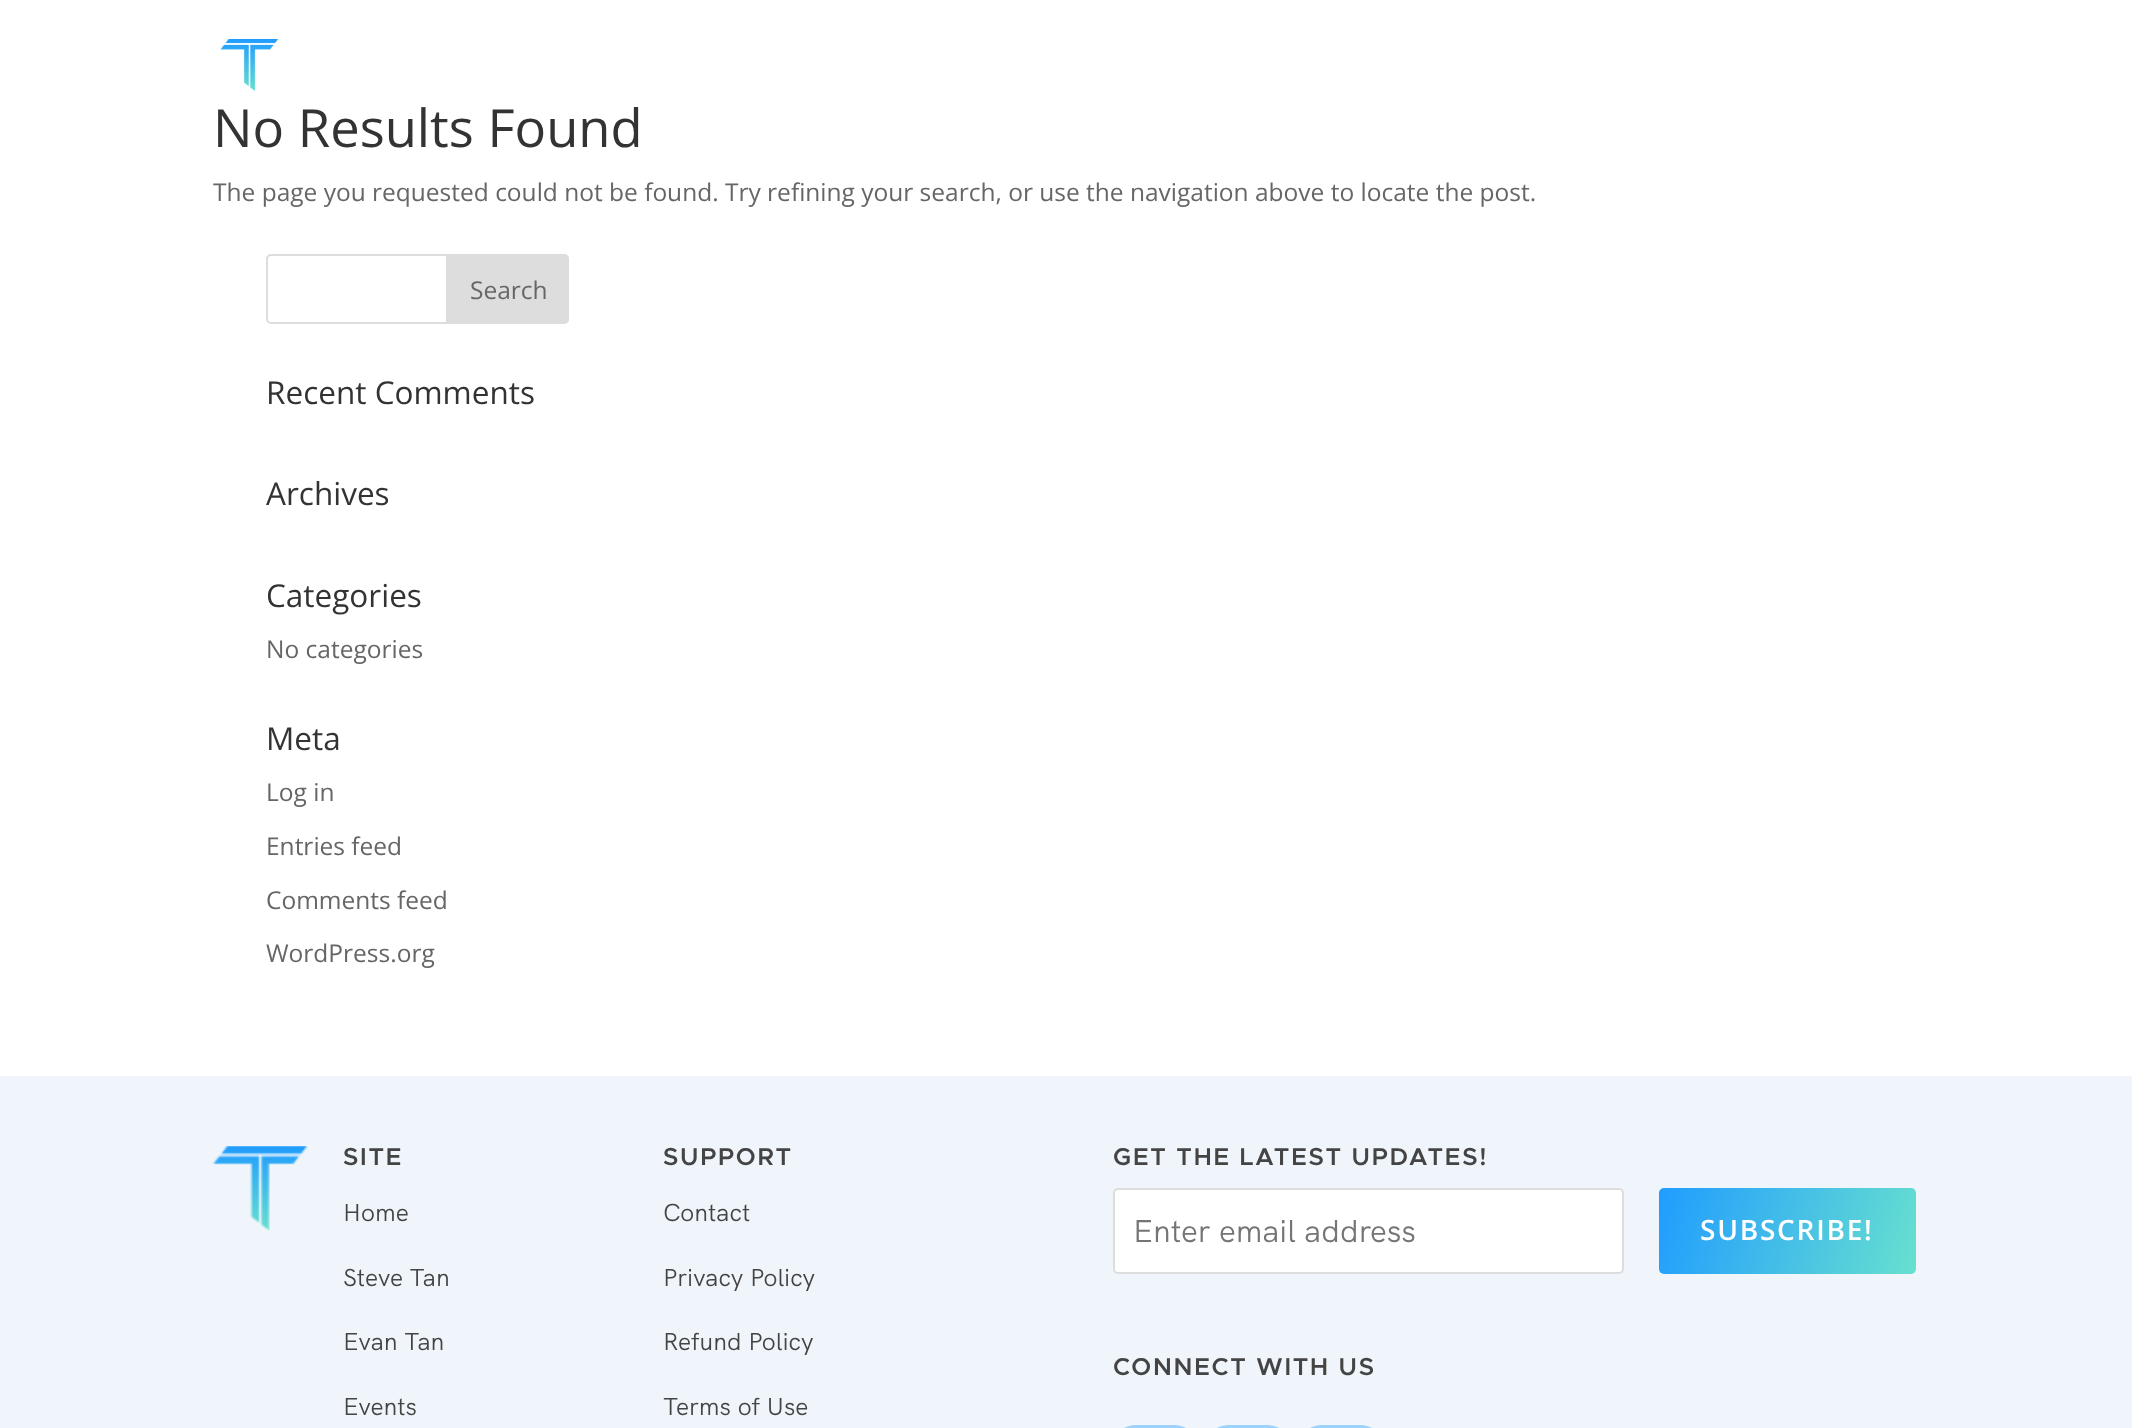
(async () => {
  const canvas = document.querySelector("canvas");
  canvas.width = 2132;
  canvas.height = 1428;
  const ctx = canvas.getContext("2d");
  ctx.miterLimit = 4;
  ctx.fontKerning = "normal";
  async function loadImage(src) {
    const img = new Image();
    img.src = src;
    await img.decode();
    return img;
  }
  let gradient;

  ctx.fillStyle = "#ffffff";
  ctx.fillRect(0, 0, 2132, 1428);
  ctx.drawImage(await loadImage("img/1.png"), 220, 39, 59, 52);
  ctx.beginPath();
  ctx.roundRect(267, 255, 301, 68, 4);
  ctx.strokeStyle = "#dddddd";
  ctx.lineWidth = 2;
  ctx.stroke();
  ctx.fillStyle = "#dddddd";
  ctx.beginPath();
  ctx.roundRect(447, 255, 121, 68, [0, 4, 4, 0]);
  ctx.fill();
  ctx.stroke();
  ctx.fillStyle = "#eff5fa";
  ctx.fillRect(0, 1076, 2132, 352);
  ctx.drawImage(await loadImage("img/2.png"), 213, 1146, 95, 85);
  ctx.fillStyle = "#ffffff";
  ctx.beginPath();
  ctx.roundRect(1114, 1189, 509, 84, 4);
  ctx.fill();
  ctx.stroke();
  gradient = ctx.createLinearGradient(1918, 1268, 1657, 1194);
  gradient.addColorStop(0, "#68e0cf");
  gradient.addColorStop(1, "#209cff");
  ctx.fillStyle = gradient;
  ctx.beginPath();
  ctx.roundRect(1659, 1188, 257, 86, 5);
  ctx.fill();
  ctx.fillStyle = "#9cd1fc";
  ctx.beginPath();
  ctx.roundRect(1113, 1425, 84, 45, 42);
  ctx.fill();
  ctx.beginPath();
  ctx.roundRect(1206, 1425, 84, 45, 42);
  ctx.fill();
  ctx.beginPath();
  ctx.roundRect(1299, 1425, 84, 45, 42);
  ctx.fill();
  ctx.font = "52.5px Open Sans";
  ctx.fillStyle = "#333333";
  ctx.fillText("No Results Found", 213, 147);
  ctx.font = "24.5px Open Sans";
  ctx.fillStyle = "#666666";
  ctx.fillText("The page you requested could not be found. Try refining your search, or use the navigation above to locate the post.", 213, 201);
  ctx.fillText("Search", 470, 299);
  ctx.font = "31.5px Open Sans";
  ctx.fillStyle = "#333333";
  for (const [text, x, y] of [
    ["Recent Comments", 266, 404],
    ["Archives", 266, 505],
    ["Categories", 266, 607],
  ]) {
    ctx.fillText(text, x, y);
  }
  ctx.font = "24.5px Open Sans";
  ctx.fillStyle = "#666666";
  ctx.fillText("No categories", 266, 658);
  ctx.font = "31.5px Open Sans";
  ctx.fillStyle = "#333333";
  ctx.fillText("Meta", 266, 750);
  ctx.font = "24.5px Open Sans";
  ctx.fillStyle = "#666666";
  for (const [text, x, y] of [
    ["Log in", 266, 801],
    ["Entries feed", 266, 855],
    ["Comments feed", 266, 909],
    ["WordPress.org", 266, 962],
  ]) {
    ctx.fillText(text, x, y);
  }
  ctx.letterSpacing = "1.75px";
  ctx.font = "600 24.5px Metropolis";
  ctx.fillStyle = "#444444";
  ctx.fillText("SITE", 343, 1165);
  ctx.letterSpacing = "0px";
  ctx.font = "24.5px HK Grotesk";
  for (const [text, x, y] of [
    ["Home", 343, 1221],
    ["Steve Tan", 343, 1286],
    ["Evan Tan", 343, 1350],
    ["Events", 343, 1415],
  ]) {
    ctx.fillText(text, x, y);
  }
  ctx.letterSpacing = "1.75px";
  ctx.font = "600 24.5px Metropolis";
  ctx.fillText("SUPPORT", 663, 1165);
  ctx.letterSpacing = "0px";
  ctx.font = "24.5px HK Grotesk";
  for (const [text, x, y] of [
    ["Contact", 663, 1221],
    ["Privacy Policy", 663, 1286],
    ["Refund Policy", 663, 1350],
    ["Terms of Use", 663, 1415],
  ]) {
    ctx.fillText(text, x, y);
  }
  ctx.letterSpacing = "1.75px";
  ctx.font = "600 24.5px Metropolis";
  ctx.fillText("GET THE LATEST UPDATES!", 1113, 1165);
  ctx.letterSpacing = "0px";
  ctx.font = "31.5px HK Grotesk";
  ctx.fillStyle = "#757575";
  ctx.fillText("Enter email address", 1133, 1242);
  ctx.letterSpacing = "1.75px";
  ctx.font = "600 28px Open Sans";
  ctx.fillStyle = "#ffffff";
  ctx.fillText("SUBSCRIBE!", 1700, 1240);
  ctx.font = "600 24.5px Metropolis";
  ctx.fillStyle = "#444444";
  ctx.fillText("CONNECT WITH US", 1113, 1375);
})();
